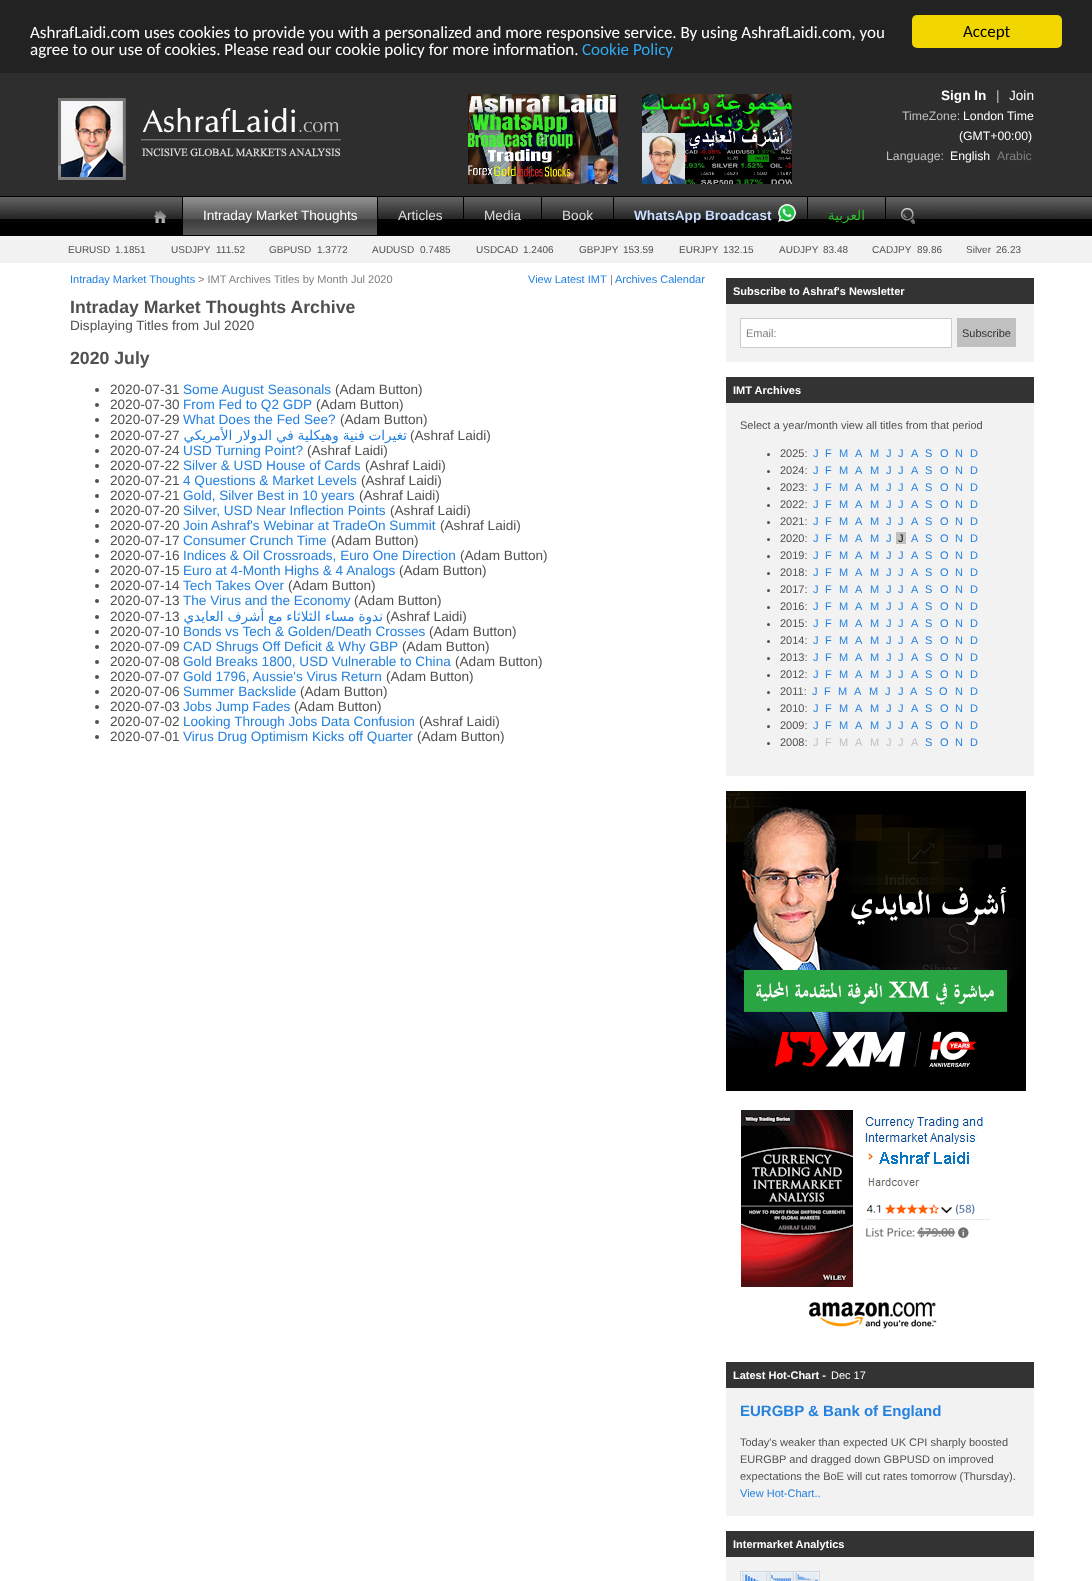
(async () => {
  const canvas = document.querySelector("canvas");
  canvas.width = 1092;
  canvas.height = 1581;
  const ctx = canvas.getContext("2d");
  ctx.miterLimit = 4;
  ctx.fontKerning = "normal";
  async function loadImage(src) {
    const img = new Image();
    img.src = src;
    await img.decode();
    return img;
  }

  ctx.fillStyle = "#ffffff";
  ctx.fillRect(0, 0, 1092, 1581);
  ctx.fillStyle = "#222222";
  ctx.fillRect(0, 0, 1092, 73);
  ctx.fillStyle = "#f1d600";
  ctx.beginPath();
  ctx.roundRect(912, 15, 150, 33, 5);
  ctx.fill();
  ctx.fillStyle = "#f2f2f2";
  ctx.fillRect(0, 236, 1092, 27);
  ctx.fillStyle = "#2e2e2e";
  ctx.fillRect(0, 73, 1092, 123);
  ctx.drawImage(await loadImage("img/1.png"), 58, 98, 68, 82);
  ctx.drawImage(await loadImage("img/2.png"), 141, 108, 200, 49);
  ctx.drawImage(await loadImage("img/3.png"), 468, 94, 150, 90);
  ctx.drawImage(await loadImage("img/4.png"), 642, 94, 150, 90);
  ctx.drawImage(await loadImage("img/5.png"), 0, 197, 1092, 39);
  ctx.fillStyle = "#000000";
  ctx.fillRect(0, 196, 1092, 1);
  ctx.drawImage(await loadImage("img/6.png"), 154, 210, 12, 13);
  ctx.drawImage(await loadImage("img/7.png"), 183, 197, 194, 38);
  for (const [x, y, w, h, color] of [
    [182, 197, 1, 22, "#000000"],
    [377, 197, 1, 22, "#000000"],
    [463, 197, 1, 22, "#000000"],
    [541, 197, 1, 22, "#000000"],
  ]) {
    ctx.fillStyle = color;
    ctx.fillRect(x, y, w, h);
  }
  ctx.drawImage(await loadImage("img/8.png"), 778, 203, 18, 19);
  ctx.fillRect(613, 197, 1, 22);
  ctx.fillRect(807, 197, 1, 22);
  ctx.drawImage(await loadImage("img/9.png"), 901, 208, 14, 16);
  ctx.fillRect(885, 197, 1, 22);
  ctx.fillStyle = "#505050";
  ctx.beginPath();
  ctx.arc(97, 390, 2, 0, Math.PI * 2);
  ctx.fill();
  ctx.beginPath();
  ctx.arc(97, 405, 2, 0, Math.PI * 2);
  ctx.fill();
  ctx.beginPath();
  ctx.arc(97, 420, 2, 0, Math.PI * 2);
  ctx.fill();
  ctx.beginPath();
  ctx.arc(97, 436, 2, 0, Math.PI * 2);
  ctx.fill();
  ctx.beginPath();
  ctx.arc(97, 451, 2, 0, Math.PI * 2);
  ctx.fill();
  ctx.beginPath();
  ctx.arc(97, 466, 2, 0, Math.PI * 2);
  ctx.fill();
  ctx.beginPath();
  ctx.arc(97, 481, 2, 0, Math.PI * 2);
  ctx.fill();
  ctx.beginPath();
  ctx.arc(97, 496, 2, 0, Math.PI * 2);
  ctx.fill();
  ctx.beginPath();
  ctx.arc(97, 511, 2, 0, Math.PI * 2);
  ctx.fill();
  ctx.beginPath();
  ctx.arc(97, 526, 2, 0, Math.PI * 2);
  ctx.fill();
  ctx.beginPath();
  ctx.arc(97, 541, 2, 0, Math.PI * 2);
  ctx.fill();
  ctx.beginPath();
  ctx.arc(97, 556, 2, 0, Math.PI * 2);
  ctx.fill();
  ctx.beginPath();
  ctx.arc(97, 571, 2, 0, Math.PI * 2);
  ctx.fill();
  ctx.beginPath();
  ctx.arc(97, 586, 2, 0, Math.PI * 2);
  ctx.fill();
  ctx.beginPath();
  ctx.arc(97, 601, 2, 0, Math.PI * 2);
  ctx.fill();
  ctx.beginPath();
  ctx.arc(97, 617, 2, 0, Math.PI * 2);
  ctx.fill();
  ctx.beginPath();
  ctx.arc(97, 632, 2, 0, Math.PI * 2);
  ctx.fill();
  ctx.beginPath();
  ctx.arc(97, 647, 2, 0, Math.PI * 2);
  ctx.fill();
  ctx.beginPath();
  ctx.arc(97, 662, 2, 0, Math.PI * 2);
  ctx.fill();
  ctx.beginPath();
  ctx.arc(97, 677, 2, 0, Math.PI * 2);
  ctx.fill();
  ctx.beginPath();
  ctx.arc(97, 692, 2, 0, Math.PI * 2);
  ctx.fill();
  ctx.beginPath();
  ctx.arc(97, 707, 2, 0, Math.PI * 2);
  ctx.fill();
  ctx.beginPath();
  ctx.arc(97, 722, 2, 0, Math.PI * 2);
  ctx.fill();
  ctx.beginPath();
  ctx.arc(97, 737, 2, 0, Math.PI * 2);
  ctx.fill();
  ctx.fillStyle = "#f2f2f2";
  ctx.fillRect(726, 304, 308, 58);
  ctx.fillStyle = "#333333";
  ctx.fillRect(726, 278, 308, 26);
  ctx.fillStyle = "#ffffff";
  ctx.beginPath();
  ctx.rect(740.5, 318.5, 211, 29);
  ctx.fill();
  ctx.strokeStyle = "#cccccc";
  ctx.stroke();
  for (const [x, y, w, h, color] of [
    [957, 318, 59, 29, "#c0c0c0"],
    [726, 403, 308, 373, "#f2f2f2"],
    [726, 377, 308, 26, "#333333"],
  ]) {
    ctx.fillStyle = color;
    ctx.fillRect(x, y, w, h);
  }
  ctx.fillStyle = "#505050";
  ctx.beginPath();
  ctx.arc(768.5, 454.5, 1.5, 0, Math.PI * 2);
  ctx.fill();
  ctx.beginPath();
  ctx.arc(768.5, 471.5, 1.5, 0, Math.PI * 2);
  ctx.fill();
  ctx.beginPath();
  ctx.arc(768.5, 488.5, 1.5, 0, Math.PI * 2);
  ctx.fill();
  ctx.beginPath();
  ctx.arc(768.5, 505.5, 1.5, 0, Math.PI * 2);
  ctx.fill();
  ctx.beginPath();
  ctx.arc(768.5, 522.5, 1.5, 0, Math.PI * 2);
  ctx.fill();
  ctx.beginPath();
  ctx.arc(768.5, 539.5, 1.5, 0, Math.PI * 2);
  ctx.fill();
  ctx.fillStyle = "#c0c0c0";
  ctx.fillRect(896, 532, 10, 12);
  ctx.fillStyle = "#505050";
  ctx.beginPath();
  ctx.arc(768.5, 556.5, 1.5, 0, Math.PI * 2);
  ctx.fill();
  ctx.beginPath();
  ctx.arc(768.5, 573.5, 1.5, 0, Math.PI * 2);
  ctx.fill();
  ctx.beginPath();
  ctx.arc(768.5, 590.5, 1.5, 0, Math.PI * 2);
  ctx.fill();
  ctx.beginPath();
  ctx.arc(768.5, 607.5, 1.5, 0, Math.PI * 2);
  ctx.fill();
  ctx.beginPath();
  ctx.arc(768.5, 624.5, 1.5, 0, Math.PI * 2);
  ctx.fill();
  ctx.beginPath();
  ctx.arc(768.5, 641.5, 1.5, 0, Math.PI * 2);
  ctx.fill();
  ctx.beginPath();
  ctx.arc(768.5, 658.5, 1.5, 0, Math.PI * 2);
  ctx.fill();
  ctx.beginPath();
  ctx.arc(768.5, 675.5, 1.5, 0, Math.PI * 2);
  ctx.fill();
  ctx.beginPath();
  ctx.arc(768.5, 692.5, 1.5, 0, Math.PI * 2);
  ctx.fill();
  ctx.beginPath();
  ctx.arc(768.5, 709.5, 1.5, 0, Math.PI * 2);
  ctx.fill();
  ctx.beginPath();
  ctx.arc(768.5, 726.5, 1.5, 0, Math.PI * 2);
  ctx.fill();
  ctx.beginPath();
  ctx.arc(768.5, 743.5, 1.5, 0, Math.PI * 2);
  ctx.fill();
  ctx.drawImage(await loadImage("img/10.png"), 726, 791, 300, 300);
  ctx.drawImage(await loadImage("img/11.png"), 741, 1110, 249, 219);
  for (const [x, y, w, h, color] of [
    [726, 1388, 308, 128, "#f2f2f2"],
    [726, 1362, 308, 26, "#333333"],
    [726, 1557, 308, 24, "#f2f2f2"],
    [726, 1531, 308, 26, "#333333"],
  ]) {
    ctx.fillStyle = color;
    ctx.fillRect(x, y, w, h);
  }
  ctx.drawImage(await loadImage("img/12.png"), 740, 1571, 80, 10);
  ctx.font = "17px Carlito";
  ctx.fillStyle = "#ffffff";
  ctx.fillText("AshrafLaidi.com uses cookies to provide you with a personalized and more responsive service. By using AshrafLaidi.com, you", 30, 38);
  ctx.fillText("agree to our use of cookies. Please read our cookie policy for more information.", 30, 55);
  ctx.fillStyle = "#31a8f0";
  ctx.fillText("Cookie Policy", 582, 55);
  ctx.fillStyle = "#000000";
  ctx.fillText("Accept", 963, 37);
  ctx.font = "bold 13.6px Liberation Sans";
  ctx.fillStyle = "#ffffff";
  ctx.fillText("Sign In", 941, 100);
  ctx.font = "13.6px Liberation Sans";
  ctx.fillStyle = "#c0c0c0";
  ctx.fillText("|", 996, 100);
  ctx.fillStyle = "#ffffff";
  ctx.fillText("Join", 1009, 100);
  ctx.font = "12.25px Liberation Sans";
  ctx.fillStyle = "#c0c0c0";
  ctx.fillText("TimeZone:", 902, 120);
  ctx.fillStyle = "#ffffff";
  ctx.fillText("London Time", 963, 120);
  ctx.fillText("(GMT+00:00)", 959, 140);
  ctx.fillStyle = "#c0c0c0";
  ctx.fillText("Language:", 886, 160);
  ctx.fillStyle = "#ffffff";
  ctx.fillText("English", 950, 160);
  ctx.fillStyle = "#808080";
  ctx.fillText("Arabic", 997, 160);
  ctx.font = "13.6px Liberation Sans";
  ctx.fillStyle = "#ffffff";
  ctx.fillText("Intraday Market Thoughts", 203, 220);
  ctx.fillStyle = "#dcdcdc";
  for (const [text, x, y] of [
    ["Articles", 398, 220],
    ["Media", 484, 220],
    ["Book", 562, 220],
  ]) {
    ctx.fillText(text, x, y);
  }
  ctx.font = "bold 13.6px Liberation Sans";
  ctx.fillStyle = "#cadeff";
  ctx.fillText("WhatsApp Broadcast", 634, 220);
  ctx.direction = "rtl";
  ctx.font = "13.6px DejaVu Sans";
  ctx.fillStyle = "#2dbb2a";
  ctx.fillText("العربية", 865, 220);
  ctx.direction = "ltr";
  ctx.font = "10px Liberation Sans";
  ctx.fillStyle = "#505050";
  for (const [text, x, y] of [
    ["EURUSD", 68, 253],
    ["1.1851", 115, 253],
    ["USDJPY", 171, 253],
    ["111.52", 216, 253],
    ["GBPUSD", 269, 253],
    ["1.3772", 317, 253],
    ["AUDUSD", 372, 253],
    ["0.7485", 420, 253],
    ["USDCAD", 476, 253],
    ["1.2406", 523, 253],
    ["GBPJPY", 579, 253],
    ["153.59", 623, 253],
    ["EURJPY", 679, 253],
    ["132.15", 723, 253],
    ["AUDJPY", 779, 253],
    ["83.48", 823, 253],
    ["CADJPY", 872, 253],
    ["89.86", 917, 253],
    ["Silver", 966, 253],
    ["26.23", 996, 253],
  ]) {
    ctx.fillText(text, x, y);
  }
  ctx.font = "11px Liberation Sans";
  ctx.fillStyle = "#2481df";
  ctx.fillText("Intraday Market Thoughts", 70, 283);
  ctx.fillStyle = "#808080";
  ctx.fillText("> IMT Archives Titles by Month Jul 2020", 198, 283);
  ctx.fillStyle = "#2481df";
  ctx.fillText("View Latest IMT", 528, 283);
  ctx.fillStyle = "#808080";
  ctx.fillText("|", 610, 283);
  ctx.fillStyle = "#2481df";
  ctx.fillText("Archives Calendar", 615, 283);
  ctx.font = "bold 17.7px Liberation Sans";
  ctx.fillStyle = "#505050";
  ctx.fillText("Intraday Market Thoughts Archive", 70, 313);
  ctx.font = "13.6px Liberation Sans";
  ctx.fillText("Displaying Titles from Jul 2020", 70, 330);
  ctx.font = "bold 17.7px Liberation Sans";
  ctx.fillText("2020 July", 70, 364);
  ctx.font = "13.6px Liberation Sans";
  ctx.fillText("2020-07-31", 110, 394);
  ctx.fillStyle = "#2481df";
  ctx.fillText("Some August Seasonals", 183, 394);
  ctx.fillStyle = "#505050";
  ctx.fillText("(Adam Button)", 335, 394);
  ctx.fillText("2020-07-30", 110, 409);
  ctx.fillStyle = "#2481df";
  ctx.fillText("From Fed to Q2 GDP", 183, 409);
  ctx.fillStyle = "#505050";
  ctx.fillText("(Adam Button)", 316, 409);
  ctx.fillText("2020-07-29", 110, 424);
  ctx.fillStyle = "#2481df";
  ctx.fillText("What Does the Fed See?", 183, 424);
  ctx.fillStyle = "#505050";
  ctx.fillText("(Adam Button)", 340, 424);
  ctx.fillText("2020-07-27", 110, 440);
  ctx.wordSpacing = "-0.5px";
  ctx.direction = "rtl";
  ctx.font = "13.6px DejaVu Sans";
  ctx.fillStyle = "#2481df";
  ctx.fillText("تغيرات فنية وهيكلية في الدولار الأمريكي", 407, 440);
  ctx.wordSpacing = "0px";
  ctx.direction = "ltr";
  ctx.font = "13.6px Liberation Sans";
  ctx.fillStyle = "#505050";
  ctx.fillText("(Ashraf Laidi)", 410, 440);
  ctx.fillText("2020-07-24", 110, 455);
  ctx.fillStyle = "#2481df";
  ctx.fillText("USD Turning Point?", 183, 455);
  ctx.fillStyle = "#505050";
  ctx.fillText("(Ashraf Laidi)", 307, 455);
  ctx.fillText("2020-07-22", 110, 470);
  ctx.fillStyle = "#2481df";
  ctx.fillText("Silver & USD House of Cards", 183, 470);
  ctx.fillStyle = "#505050";
  ctx.fillText("(Ashraf Laidi)", 365, 470);
  ctx.fillText("2020-07-21", 110, 485);
  ctx.fillStyle = "#2481df";
  ctx.fillText("4 Questions & Market Levels", 183, 485);
  ctx.fillStyle = "#505050";
  ctx.fillText("(Ashraf Laidi)", 361, 485);
  ctx.fillText("2020-07-21", 110, 500);
  ctx.fillStyle = "#2481df";
  ctx.fillText("Gold, Silver Best in 10 years", 183, 500);
  ctx.fillStyle = "#505050";
  ctx.fillText("(Ashraf Laidi)", 359, 500);
  ctx.fillText("2020-07-20", 110, 515);
  ctx.fillStyle = "#2481df";
  ctx.fillText("Silver, USD Near Inflection Points", 183, 515);
  ctx.fillStyle = "#505050";
  ctx.fillText("(Ashraf Laidi)", 390, 515);
  ctx.fillText("2020-07-20", 110, 530);
  ctx.fillStyle = "#2481df";
  ctx.fillText("Join Ashraf's Webinar at TradeOn Summit", 183, 530);
  ctx.fillStyle = "#505050";
  ctx.fillText("(Ashraf Laidi)", 440, 530);
  ctx.fillText("2020-07-17", 110, 545);
  ctx.fillStyle = "#2481df";
  ctx.fillText("Consumer Crunch Time", 183, 545);
  ctx.fillStyle = "#505050";
  ctx.fillText("(Adam Button)", 331, 545);
  ctx.fillText("2020-07-16", 110, 560);
  ctx.fillStyle = "#2481df";
  ctx.fillText("Indices & Oil Crossroads, Euro One Direction", 183, 560);
  ctx.fillStyle = "#505050";
  ctx.fillText("(Adam Button)", 460, 560);
  ctx.fillText("2020-07-15", 110, 575);
  ctx.fillStyle = "#2481df";
  ctx.fillText("Euro at 4-Month Highs & 4 Analogs", 183, 575);
  ctx.fillStyle = "#505050";
  ctx.fillText("(Adam Button)", 399, 575);
  ctx.fillText("2020-07-14", 110, 590);
  ctx.fillStyle = "#2481df";
  ctx.fillText("Tech Takes Over", 183, 590);
  ctx.fillStyle = "#505050";
  ctx.fillText("(Adam Button)", 288, 590);
  ctx.fillText("2020-07-13", 110, 605);
  ctx.fillStyle = "#2481df";
  ctx.fillText("The Virus and the Economy", 183, 605);
  ctx.fillStyle = "#505050";
  ctx.fillText("(Adam Button)", 354, 605);
  ctx.fillText("2020-07-13", 110, 621);
  ctx.wordSpacing = "-0.5px";
  ctx.direction = "rtl";
  ctx.font = "13.6px DejaVu Sans";
  ctx.fillStyle = "#2481df";
  ctx.fillText("ندوة مساء الثلاثاء مع أشرف العايدي", 383, 621);
  ctx.wordSpacing = "0px";
  ctx.direction = "ltr";
  ctx.font = "13.6px Liberation Sans";
  ctx.fillStyle = "#505050";
  ctx.fillText("(Ashraf Laidi)", 386, 621);
  ctx.fillText("2020-07-10", 110, 636);
  ctx.fillStyle = "#2481df";
  ctx.fillText("Bonds vs Tech & Golden/Death Crosses", 183, 636);
  ctx.fillStyle = "#505050";
  ctx.fillText("(Adam Button)", 429, 636);
  ctx.fillText("2020-07-09", 110, 651);
  ctx.fillStyle = "#2481df";
  ctx.fillText("CAD Shrugs Off Deficit & Why GBP", 183, 651);
  ctx.fillStyle = "#505050";
  ctx.fillText("(Adam Button)", 402, 651);
  ctx.fillText("2020-07-08", 110, 666);
  ctx.fillStyle = "#2481df";
  ctx.fillText("Gold Breaks 1800, USD Vulnerable to China", 183, 666);
  ctx.fillStyle = "#505050";
  ctx.fillText("(Adam Button)", 455, 666);
  ctx.fillText("2020-07-07", 110, 681);
  ctx.fillStyle = "#2481df";
  ctx.fillText("Gold 1796, Aussie's Virus Return", 183, 681);
  ctx.fillStyle = "#505050";
  ctx.fillText("(Adam Button)", 386, 681);
  ctx.fillText("2020-07-06", 110, 696);
  ctx.fillStyle = "#2481df";
  ctx.fillText("Summer Backslide", 183, 696);
  ctx.fillStyle = "#505050";
  ctx.fillText("(Adam Button)", 300, 696);
  ctx.fillText("2020-07-03", 110, 711);
  ctx.fillStyle = "#2481df";
  ctx.fillText("Jobs Jump Fades", 183, 711);
  ctx.fillStyle = "#505050";
  ctx.fillText("(Adam Button)", 294, 711);
  ctx.fillText("2020-07-02", 110, 726);
  ctx.fillStyle = "#2481df";
  ctx.fillText("Looking Through Jobs Data Confusion", 183, 726);
  ctx.fillStyle = "#505050";
  ctx.fillText("(Ashraf Laidi)", 419, 726);
  ctx.fillText("2020-07-01", 110, 741);
  ctx.fillStyle = "#2481df";
  ctx.fillText("Virus Drug Optimism Kicks off Quarter", 183, 741);
  ctx.fillStyle = "#505050";
  ctx.fillText("(Adam Button)", 417, 741);
  ctx.font = "bold 11px Liberation Sans";
  ctx.fillStyle = "#ffffff";
  ctx.fillText("Subscribe to Ashraf's Newsletter", 733, 295);
  ctx.font = "11px Liberation Sans";
  ctx.fillStyle = "#808080";
  ctx.fillText("Email:", 746, 337);
  ctx.fillStyle = "#333333";
  ctx.fillText("Subscribe", 962, 337);
  ctx.font = "bold 11px Liberation Sans";
  ctx.fillStyle = "#ffffff";
  ctx.fillText("IMT Archives", 733, 394);
  ctx.font = "11px Liberation Sans";
  ctx.fillStyle = "#505050";
  ctx.fillText("Select a year/month view all titles from that period", 740, 429);
  ctx.fillText("2025:", 780, 457);
  ctx.fillStyle = "#2481df";
  for (const [text, x, y] of [
    ["J", 813, 457],
    ["F", 825, 457],
    ["M", 839, 457],
    ["A", 855, 457],
    ["M", 870, 457],
    ["J", 886, 457],
    ["J", 898, 457],
    ["A", 911, 457],
    ["S", 925, 457],
    ["O", 940, 457],
    ["N", 955, 457],
    ["D", 970, 457],
  ]) {
    ctx.fillText(text, x, y);
  }
  ctx.fillStyle = "#505050";
  ctx.fillText("2024:", 780, 474);
  ctx.fillStyle = "#2481df";
  for (const [text, x, y] of [
    ["J", 813, 474],
    ["F", 825, 474],
    ["M", 839, 474],
    ["A", 855, 474],
    ["M", 870, 474],
    ["J", 886, 474],
    ["J", 898, 474],
    ["A", 911, 474],
    ["S", 925, 474],
    ["O", 940, 474],
    ["N", 955, 474],
    ["D", 970, 474],
  ]) {
    ctx.fillText(text, x, y);
  }
  ctx.fillStyle = "#505050";
  ctx.fillText("2023:", 780, 491);
  ctx.fillStyle = "#2481df";
  for (const [text, x, y] of [
    ["J", 813, 491],
    ["F", 825, 491],
    ["M", 839, 491],
    ["A", 855, 491],
    ["M", 870, 491],
    ["J", 886, 491],
    ["J", 898, 491],
    ["A", 911, 491],
    ["S", 925, 491],
    ["O", 940, 491],
    ["N", 955, 491],
    ["D", 970, 491],
  ]) {
    ctx.fillText(text, x, y);
  }
  ctx.fillStyle = "#505050";
  ctx.fillText("2022:", 780, 508);
  ctx.fillStyle = "#2481df";
  for (const [text, x, y] of [
    ["J", 813, 508],
    ["F", 825, 508],
    ["M", 839, 508],
    ["A", 855, 508],
    ["M", 870, 508],
    ["J", 886, 508],
    ["J", 898, 508],
    ["A", 911, 508],
    ["S", 925, 508],
    ["O", 940, 508],
    ["N", 955, 508],
    ["D", 970, 508],
  ]) {
    ctx.fillText(text, x, y);
  }
  ctx.fillStyle = "#505050";
  ctx.fillText("2021:", 780, 525);
  ctx.fillStyle = "#2481df";
  for (const [text, x, y] of [
    ["J", 813, 525],
    ["F", 825, 525],
    ["M", 839, 525],
    ["A", 855, 525],
    ["M", 870, 525],
    ["J", 886, 525],
    ["J", 898, 525],
    ["A", 911, 525],
    ["S", 925, 525],
    ["O", 940, 525],
    ["N", 955, 525],
    ["D", 970, 525],
  ]) {
    ctx.fillText(text, x, y);
  }
  ctx.fillStyle = "#505050";
  ctx.fillText("2020:", 780, 542);
  ctx.fillStyle = "#2481df";
  for (const [text, x, y] of [
    ["J", 813, 542],
    ["F", 825, 542],
    ["M", 839, 542],
    ["A", 855, 542],
    ["M", 870, 542],
    ["J", 886, 542],
  ]) {
    ctx.fillText(text, x, y);
  }
  ctx.fillStyle = "#000000";
  ctx.fillText("J", 898, 542);
  ctx.fillStyle = "#2481df";
  for (const [text, x, y] of [
    ["A", 911, 542],
    ["S", 925, 542],
    ["O", 940, 542],
    ["N", 955, 542],
    ["D", 970, 542],
  ]) {
    ctx.fillText(text, x, y);
  }
  ctx.fillStyle = "#505050";
  ctx.fillText("2019:", 780, 559);
  ctx.fillStyle = "#2481df";
  for (const [text, x, y] of [
    ["J", 813, 559],
    ["F", 825, 559],
    ["M", 839, 559],
    ["A", 855, 559],
    ["M", 870, 559],
    ["J", 886, 559],
    ["J", 898, 559],
    ["A", 911, 559],
    ["S", 925, 559],
    ["O", 940, 559],
    ["N", 955, 559],
    ["D", 970, 559],
  ]) {
    ctx.fillText(text, x, y);
  }
  ctx.fillStyle = "#505050";
  ctx.fillText("2018:", 780, 576);
  ctx.fillStyle = "#2481df";
  for (const [text, x, y] of [
    ["J", 813, 576],
    ["F", 825, 576],
    ["M", 839, 576],
    ["A", 855, 576],
    ["M", 870, 576],
    ["J", 886, 576],
    ["J", 898, 576],
    ["A", 911, 576],
    ["S", 925, 576],
    ["O", 940, 576],
    ["N", 955, 576],
    ["D", 970, 576],
  ]) {
    ctx.fillText(text, x, y);
  }
  ctx.fillStyle = "#505050";
  ctx.fillText("2017:", 780, 593);
  ctx.fillStyle = "#2481df";
  for (const [text, x, y] of [
    ["J", 813, 593],
    ["F", 825, 593],
    ["M", 839, 593],
    ["A", 855, 593],
    ["M", 870, 593],
    ["J", 886, 593],
    ["J", 898, 593],
    ["A", 911, 593],
    ["S", 925, 593],
    ["O", 940, 593],
    ["N", 955, 593],
    ["D", 970, 593],
  ]) {
    ctx.fillText(text, x, y);
  }
  ctx.fillStyle = "#505050";
  ctx.fillText("2016:", 780, 610);
  ctx.fillStyle = "#2481df";
  for (const [text, x, y] of [
    ["J", 813, 610],
    ["F", 825, 610],
    ["M", 839, 610],
    ["A", 855, 610],
    ["M", 870, 610],
    ["J", 886, 610],
    ["J", 898, 610],
    ["A", 911, 610],
    ["S", 925, 610],
    ["O", 940, 610],
    ["N", 955, 610],
    ["D", 970, 610],
  ]) {
    ctx.fillText(text, x, y);
  }
  ctx.fillStyle = "#505050";
  ctx.fillText("2015:", 780, 627);
  ctx.fillStyle = "#2481df";
  for (const [text, x, y] of [
    ["J", 813, 627],
    ["F", 825, 627],
    ["M", 839, 627],
    ["A", 855, 627],
    ["M", 870, 627],
    ["J", 886, 627],
    ["J", 898, 627],
    ["A", 911, 627],
    ["S", 925, 627],
    ["O", 940, 627],
    ["N", 955, 627],
    ["D", 970, 627],
  ]) {
    ctx.fillText(text, x, y);
  }
  ctx.fillStyle = "#505050";
  ctx.fillText("2014:", 780, 644);
  ctx.fillStyle = "#2481df";
  for (const [text, x, y] of [
    ["J", 813, 644],
    ["F", 825, 644],
    ["M", 839, 644],
    ["A", 855, 644],
    ["M", 870, 644],
    ["J", 886, 644],
    ["J", 898, 644],
    ["A", 911, 644],
    ["S", 925, 644],
    ["O", 940, 644],
    ["N", 955, 644],
    ["D", 970, 644],
  ]) {
    ctx.fillText(text, x, y);
  }
  ctx.fillStyle = "#505050";
  ctx.fillText("2013:", 780, 661);
  ctx.fillStyle = "#2481df";
  for (const [text, x, y] of [
    ["J", 813, 661],
    ["F", 825, 661],
    ["M", 839, 661],
    ["A", 855, 661],
    ["M", 870, 661],
    ["J", 886, 661],
    ["J", 898, 661],
    ["A", 911, 661],
    ["S", 925, 661],
    ["O", 940, 661],
    ["N", 955, 661],
    ["D", 970, 661],
  ]) {
    ctx.fillText(text, x, y);
  }
  ctx.fillStyle = "#505050";
  ctx.fillText("2012:", 780, 678);
  ctx.fillStyle = "#2481df";
  for (const [text, x, y] of [
    ["J", 813, 678],
    ["F", 825, 678],
    ["M", 839, 678],
    ["A", 855, 678],
    ["M", 870, 678],
    ["J", 886, 678],
    ["J", 898, 678],
    ["A", 911, 678],
    ["S", 925, 678],
    ["O", 940, 678],
    ["N", 955, 678],
    ["D", 970, 678],
  ]) {
    ctx.fillText(text, x, y);
  }
  ctx.fillStyle = "#505050";
  ctx.fillText("2011:", 780, 695);
  ctx.fillStyle = "#2481df";
  for (const [text, x, y] of [
    ["J", 812, 695],
    ["F", 824, 695],
    ["M", 838, 695],
    ["A", 854, 695],
    ["M", 869, 695],
    ["J", 885, 695],
    ["J", 898, 695],
    ["A", 910, 695],
    ["S", 925, 695],
    ["O", 939, 695],
    ["N", 955, 695],
    ["D", 970, 695],
  ]) {
    ctx.fillText(text, x, y);
  }
  ctx.fillStyle = "#505050";
  ctx.fillText("2010:", 780, 712);
  ctx.fillStyle = "#2481df";
  for (const [text, x, y] of [
    ["J", 813, 712],
    ["F", 825, 712],
    ["M", 839, 712],
    ["A", 855, 712],
    ["M", 870, 712],
    ["J", 886, 712],
    ["J", 898, 712],
    ["A", 911, 712],
    ["S", 925, 712],
    ["O", 940, 712],
    ["N", 955, 712],
    ["D", 970, 712],
  ]) {
    ctx.fillText(text, x, y);
  }
  ctx.fillStyle = "#505050";
  ctx.fillText("2009:", 780, 729);
  ctx.fillStyle = "#2481df";
  for (const [text, x, y] of [
    ["J", 813, 729],
    ["F", 825, 729],
    ["M", 839, 729],
    ["A", 855, 729],
    ["M", 870, 729],
    ["J", 886, 729],
    ["J", 898, 729],
    ["A", 911, 729],
    ["S", 925, 729],
    ["O", 940, 729],
    ["N", 955, 729],
    ["D", 970, 729],
  ]) {
    ctx.fillText(text, x, y);
  }
  ctx.fillStyle = "#505050";
  ctx.fillText("2008:", 780, 746);
  ctx.fillStyle = "#c0c0c0";
  for (const [text, x, y] of [
    ["J", 813, 746],
    ["F", 825, 746],
    ["M", 839, 746],
    ["A", 855, 746],
    ["M", 870, 746],
    ["J", 886, 746],
    ["J", 898, 746],
    ["A", 911, 746],
  ]) {
    ctx.fillText(text, x, y);
  }
  ctx.fillStyle = "#2481df";
  for (const [text, x, y] of [
    ["S", 925, 746],
    ["O", 940, 746],
    ["N", 955, 746],
    ["D", 970, 746],
  ]) {
    ctx.fillText(text, x, y);
  }
  ctx.font = "bold 11px Liberation Sans";
  ctx.fillStyle = "#ffffff";
  ctx.fillText("Latest Hot-Chart -", 733, 1379);
  ctx.font = "11px Liberation Sans";
  ctx.fillText("Dec 17", 831, 1379);
  ctx.font = "bold 15px Liberation Sans";
  ctx.fillStyle = "#2481df";
  ctx.fillText("EURGBP & Bank of England", 740, 1416);
  ctx.font = "11px Liberation Sans";
  ctx.fillStyle = "#505050";
  for (const [text, x, y] of [
    ["Today's weaker than expected UK CPI sharply boosted", 740, 1446],
    ["EURGBP and dragged down GBPUSD on improved", 740, 1463],
    ["expectations the BoE will cut rates tomorrow (Thursday).", 740, 1480],
  ]) {
    ctx.fillText(text, x, y);
  }
  ctx.fillStyle = "#2481df";
  ctx.fillText("View Hot-Chart..", 740, 1497);
  ctx.font = "bold 11px Liberation Sans";
  ctx.fillStyle = "#ffffff";
  ctx.fillText("Intermarket Analytics", 733, 1548);
})();
